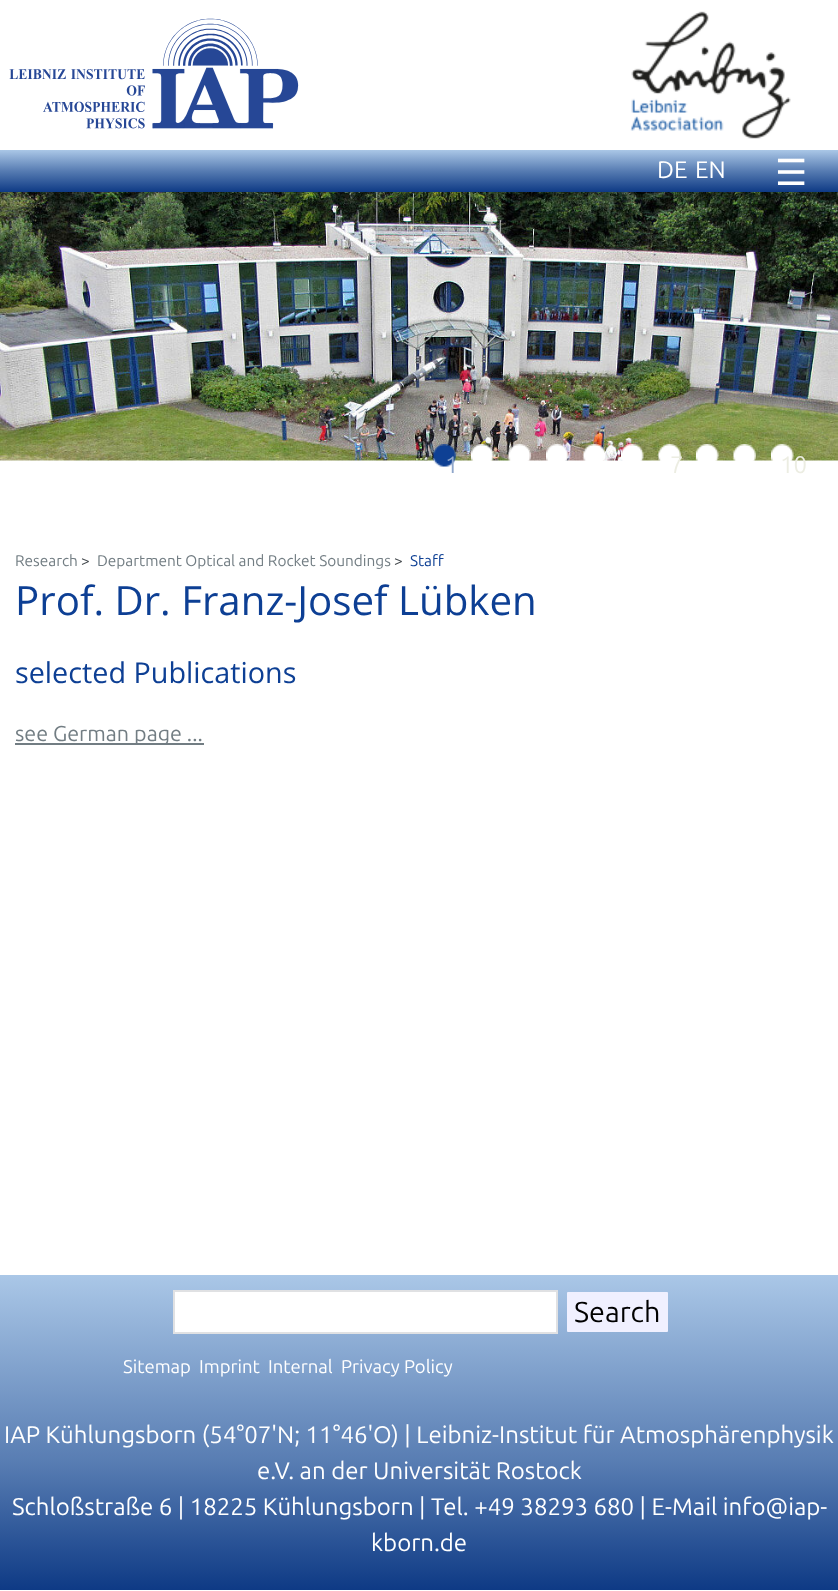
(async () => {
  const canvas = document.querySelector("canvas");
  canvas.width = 838;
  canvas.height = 1591;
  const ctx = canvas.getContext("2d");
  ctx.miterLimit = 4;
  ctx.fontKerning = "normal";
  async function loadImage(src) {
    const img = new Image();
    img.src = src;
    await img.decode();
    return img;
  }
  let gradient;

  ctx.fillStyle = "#ffffff";
  ctx.fillRect(0, 0, 838, 1591);
  ctx.drawImage(await loadImage("img/1.png"), 9, 18, 290, 111);
  ctx.drawImage(await loadImage("img/2.png"), 630, 11, 161, 128);
  gradient = ctx.createLinearGradient(419, 150, 419, 192);
  gradient.addColorStop(0, "#aac7e7");
  gradient.addColorStop(0.5, "#577cb2");
  gradient.addColorStop(1, "#0e3a85");
  ctx.fillStyle = gradient;
  ctx.fillRect(0, 150, 838, 42);
  ctx.drawImage(await loadImage("img/3.png"), 0, 192, 838, 269);
  ctx.drawImage(await loadImage("img/4.png"), 471, 444, 23, 17);
  ctx.drawImage(await loadImage("img/5.png"), 508, 444, 23, 17);
  ctx.drawImage(await loadImage("img/6.png"), 546, 444, 23, 17);
  ctx.drawImage(await loadImage("img/7.png"), 583, 444, 23, 17);
  ctx.drawImage(await loadImage("img/8.png"), 621, 444, 23, 17);
  ctx.drawImage(await loadImage("img/9.png"), 696, 444, 23, 17);
  ctx.drawImage(await loadImage("img/10.png"), 733, 444, 23, 17);
  ctx.drawImage(await loadImage("img/11.png"), 433, 444, 23, 23);
  ctx.drawImage(await loadImage("img/12.png"), 658, 444, 23, 17);
  ctx.drawImage(await loadImage("img/13.png"), 771, 444, 23, 17);
  ctx.fillStyle = "#727d83";
  ctx.fillRect(15, 743, 189, 2);
  gradient = ctx.createLinearGradient(419, 1275, 419, 1590);
  gradient.addColorStop(0, "#aac7e7");
  gradient.addColorStop(0.6, "#577cb2");
  gradient.addColorStop(1, "#0e3a85");
  ctx.fillStyle = gradient;
  ctx.fillRect(0, 1275, 838, 315);
  ctx.fillStyle = "#ffffff";
  ctx.beginPath();
  ctx.rect(174, 1291, 383, 42);
  ctx.fill();
  ctx.strokeStyle = "#e0e1e3";
  ctx.lineWidth = 2;
  ctx.stroke();
  ctx.fillStyle = "#f0f0ff";
  ctx.beginPath();
  ctx.roundRect(567, 1292, 101, 40, 1);
  ctx.fill();
  ctx.font = "24px Ubuntu";
  ctx.fillStyle = "#ffffff";
  ctx.fillText("DE", 657, 178);
  ctx.fillText("EN", 695, 178);
  ctx.font = "36px DejaVu Sans";
  ctx.fillText("☰", 775, 185);
  ctx.font = "24px Ubuntu";
  ctx.fillStyle = "#8fa6ca";
  ctx.fillText("1", 445, 473);
  ctx.fillStyle = "#ecede2";
  ctx.fillText("7", 670, 473);
  ctx.fillText("10", 780, 473);
  ctx.font = "15.4px Ubuntu";
  ctx.fillStyle = "#727d83";
  ctx.fillText("Research", 15, 566);
  ctx.fillStyle = "#42484c";
  ctx.fillText(">", 81, 566);
  ctx.fillStyle = "#727d83";
  ctx.fillText("Department Optical and Rocket Soundings", 97, 566);
  ctx.fillStyle = "#42484c";
  ctx.fillText(">", 394, 566);
  ctx.fillStyle = "#0d3f94";
  ctx.fillText("Staff", 410, 566);
  ctx.font = "40.25px Open Sans";
  ctx.fillText("Prof. Dr. Franz-Josef Lübken", 15, 615);
  ctx.font = "28.75px Open Sans";
  ctx.fillText("selected Publications", 15, 683);
  ctx.font = "21.5px Ubuntu";
  ctx.fillStyle = "#727d83";
  ctx.fillText("see German page ...", 15, 741);
  ctx.font = "28.75px Ubuntu";
  ctx.fillStyle = "#000000";
  ctx.fillText("Search", 574, 1322);
  ctx.font = "18.5px Ubuntu";
  ctx.fillStyle = "#ffffff";
  for (const [text, x, y] of [
    ["Sitemap", 123, 1373],
    ["Imprint", 199, 1373],
    ["Internal", 268, 1373],
    ["Privacy Policy", 341, 1373],
  ]) {
    ctx.fillText(text, x, y);
  }
  ctx.font = "24px Ubuntu";
  for (const [text, x, y] of [
    ["IAP Kühlungsborn (54°07'N; 11°46'O) | Leibniz-Institut für Atmosphärenphysik", 4, 1443],
    ["e.V. an der Universität Rostock", 257, 1479],
    ["Schloßstraße 6 | 18225 Kühlungsborn | Tel. +49 38293 680 | E-Mail info@iap-", 12, 1515],
    ["kborn.de", 371, 1551],
  ]) {
    ctx.fillText(text, x, y);
  }
})();
